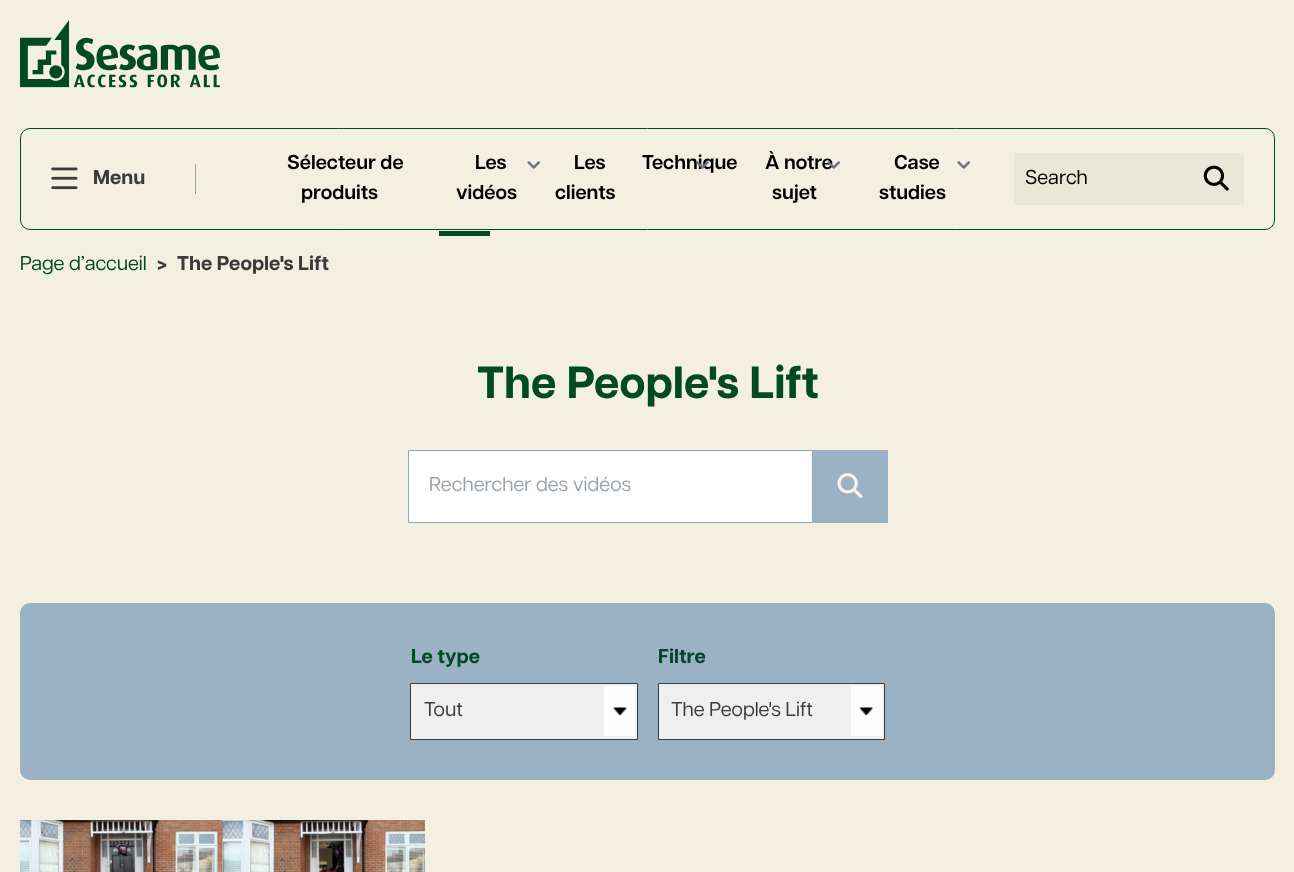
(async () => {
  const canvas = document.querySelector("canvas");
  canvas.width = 1294;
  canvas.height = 872;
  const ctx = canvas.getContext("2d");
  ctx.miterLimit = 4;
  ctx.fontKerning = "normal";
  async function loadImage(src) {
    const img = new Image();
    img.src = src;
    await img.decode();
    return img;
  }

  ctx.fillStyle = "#f3f0e1";
  ctx.fillRect(0, 0, 1294, 872);
  ctx.drawImage(await loadImage("img/1.png"), 20, 20, 200, 68);
  ctx.beginPath();
  ctx.roundRect(20.5, 128.5, 1254, 101, 9.5);
  ctx.strokeStyle = "#024a25";
  ctx.stroke();
  ctx.fillStyle = "#a1a1aa";
  ctx.fillRect(195, 164, 1, 30);
  ctx.drawImage(await loadImage("img/2.png"), 51, 167, 27, 23);
  ctx.fillStyle = "#024a25";
  ctx.fillRect(439, 231, 51, 5);
  ctx.drawImage(await loadImage("img/3.png"), 527, 161, 13, 8);
  ctx.drawImage(await loadImage("img/3.png"), 957, 161, 13, 8);
  ctx.fillStyle = "#e9e7d7";
  ctx.fillRect(1014, 153, 230, 52);
  ctx.drawImage(await loadImage("img/6.png"), 1203, 165, 26, 26);
  ctx.fillStyle = "#ffffff";
  ctx.beginPath();
  ctx.rect(408.5, 450.5, 404, 72);
  ctx.fill();
  ctx.strokeStyle = "#8da7bc";
  ctx.stroke();
  ctx.fillStyle = "#9bb2c5";
  ctx.fillRect(813, 450, 75, 73);
  ctx.drawImage(await loadImage("img/7.png"), 837, 473, 26, 26);
  ctx.beginPath();
  ctx.roundRect(20, 603, 1255, 177, 10);
  ctx.fill();
  ctx.fillStyle = "#efefef";
  ctx.beginPath();
  ctx.rect(410.5, 683.5, 227, 56);
  ctx.fill();
  ctx.strokeStyle = "#3a3b3b";
  ctx.stroke();
  ctx.fillStyle = "#fdfdfd";
  ctx.fillRect(604, 686, 31, 50);
  ctx.drawImage(await loadImage("img/8.png"), 613, 707, 14, 9);
  ctx.fillStyle = "#efefef";
  ctx.beginPath();
  ctx.rect(658.5, 683.5, 226, 56);
  ctx.fill();
  ctx.stroke();
  ctx.fillStyle = "#fdfdfd";
  ctx.fillRect(851, 686, 32, 50);
  ctx.drawImage(await loadImage("img/9.png"), 859, 707, 14, 9);
  ctx.drawImage(await loadImage("img/10.png"), 20, 820, 405, 52);
  ctx.font = "bold 20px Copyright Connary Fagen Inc";
  ctx.fillStyle = "#3a3b3b";
  ctx.fillText("Menu", 93, 184);
  ctx.font = "600 20px Copyright Connary Fagen Inc";
  ctx.fillStyle = "#000000";
  for (const [text, x, y] of [
    ["Sélecteur de", 287, 169],
    ["produits", 301, 199],
    ["Les", 475, 169],
    ["vidéos", 456, 199],
    ["Les", 574, 169],
    ["clients", 555, 199],
    ["Technique", 642, 169],
  ]) {
    ctx.fillText(text, x, y);
  }
  ctx.drawImage(await loadImage("img/4.png"), 696, 161, 13, 8);
  ctx.fillText("À notre", 765, 169);
  ctx.drawImage(await loadImage("img/5.png"), 827, 161, 13, 8);
  for (const [text, x, y] of [
    ["sujet", 772, 199],
    ["Case", 894, 169],
    ["studies", 879, 199],
  ]) {
    ctx.fillText(text, x, y);
  }
  ctx.font = "20px Copyright Connary Fagen Inc";
  ctx.fillText("Search", 1025, 184);
  ctx.fillStyle = "#024a25";
  ctx.fillText("Page d’accueil", 20, 270);
  ctx.font = "bold 20px Copyright Connary Fagen Inc";
  ctx.fillStyle = "#3a3b3b";
  ctx.fillText(">", 157, 270);
  ctx.fillText("The People's Lift", 177, 270);
  ctx.font = "bold 45px Copyright Connary Fagen Inc";
  ctx.fillStyle = "#024a25";
  ctx.fillText("The People's Lift", 477, 398);
  ctx.font = "20px Copyright Connary Fagen Inc";
  ctx.fillStyle = "#9ca3af";
  ctx.fillText("Rechercher des vidéos", 429, 491);
  ctx.font = "bold 20px Copyright Connary Fagen Inc";
  ctx.fillStyle = "#024a25";
  ctx.fillText("Le type", 411, 663);
  ctx.font = "20px Copyright Connary Fagen Inc";
  ctx.fillStyle = "#3a3b3b";
  ctx.fillText("Tout", 424, 716);
  ctx.font = "bold 20px Copyright Connary Fagen Inc";
  ctx.fillStyle = "#024a25";
  ctx.fillText("Filtre", 658, 663);
  ctx.font = "20px Copyright Connary Fagen Inc";
  ctx.fillStyle = "#3a3b3b";
  ctx.fillText("The People's Lift", 671, 716);
})();
